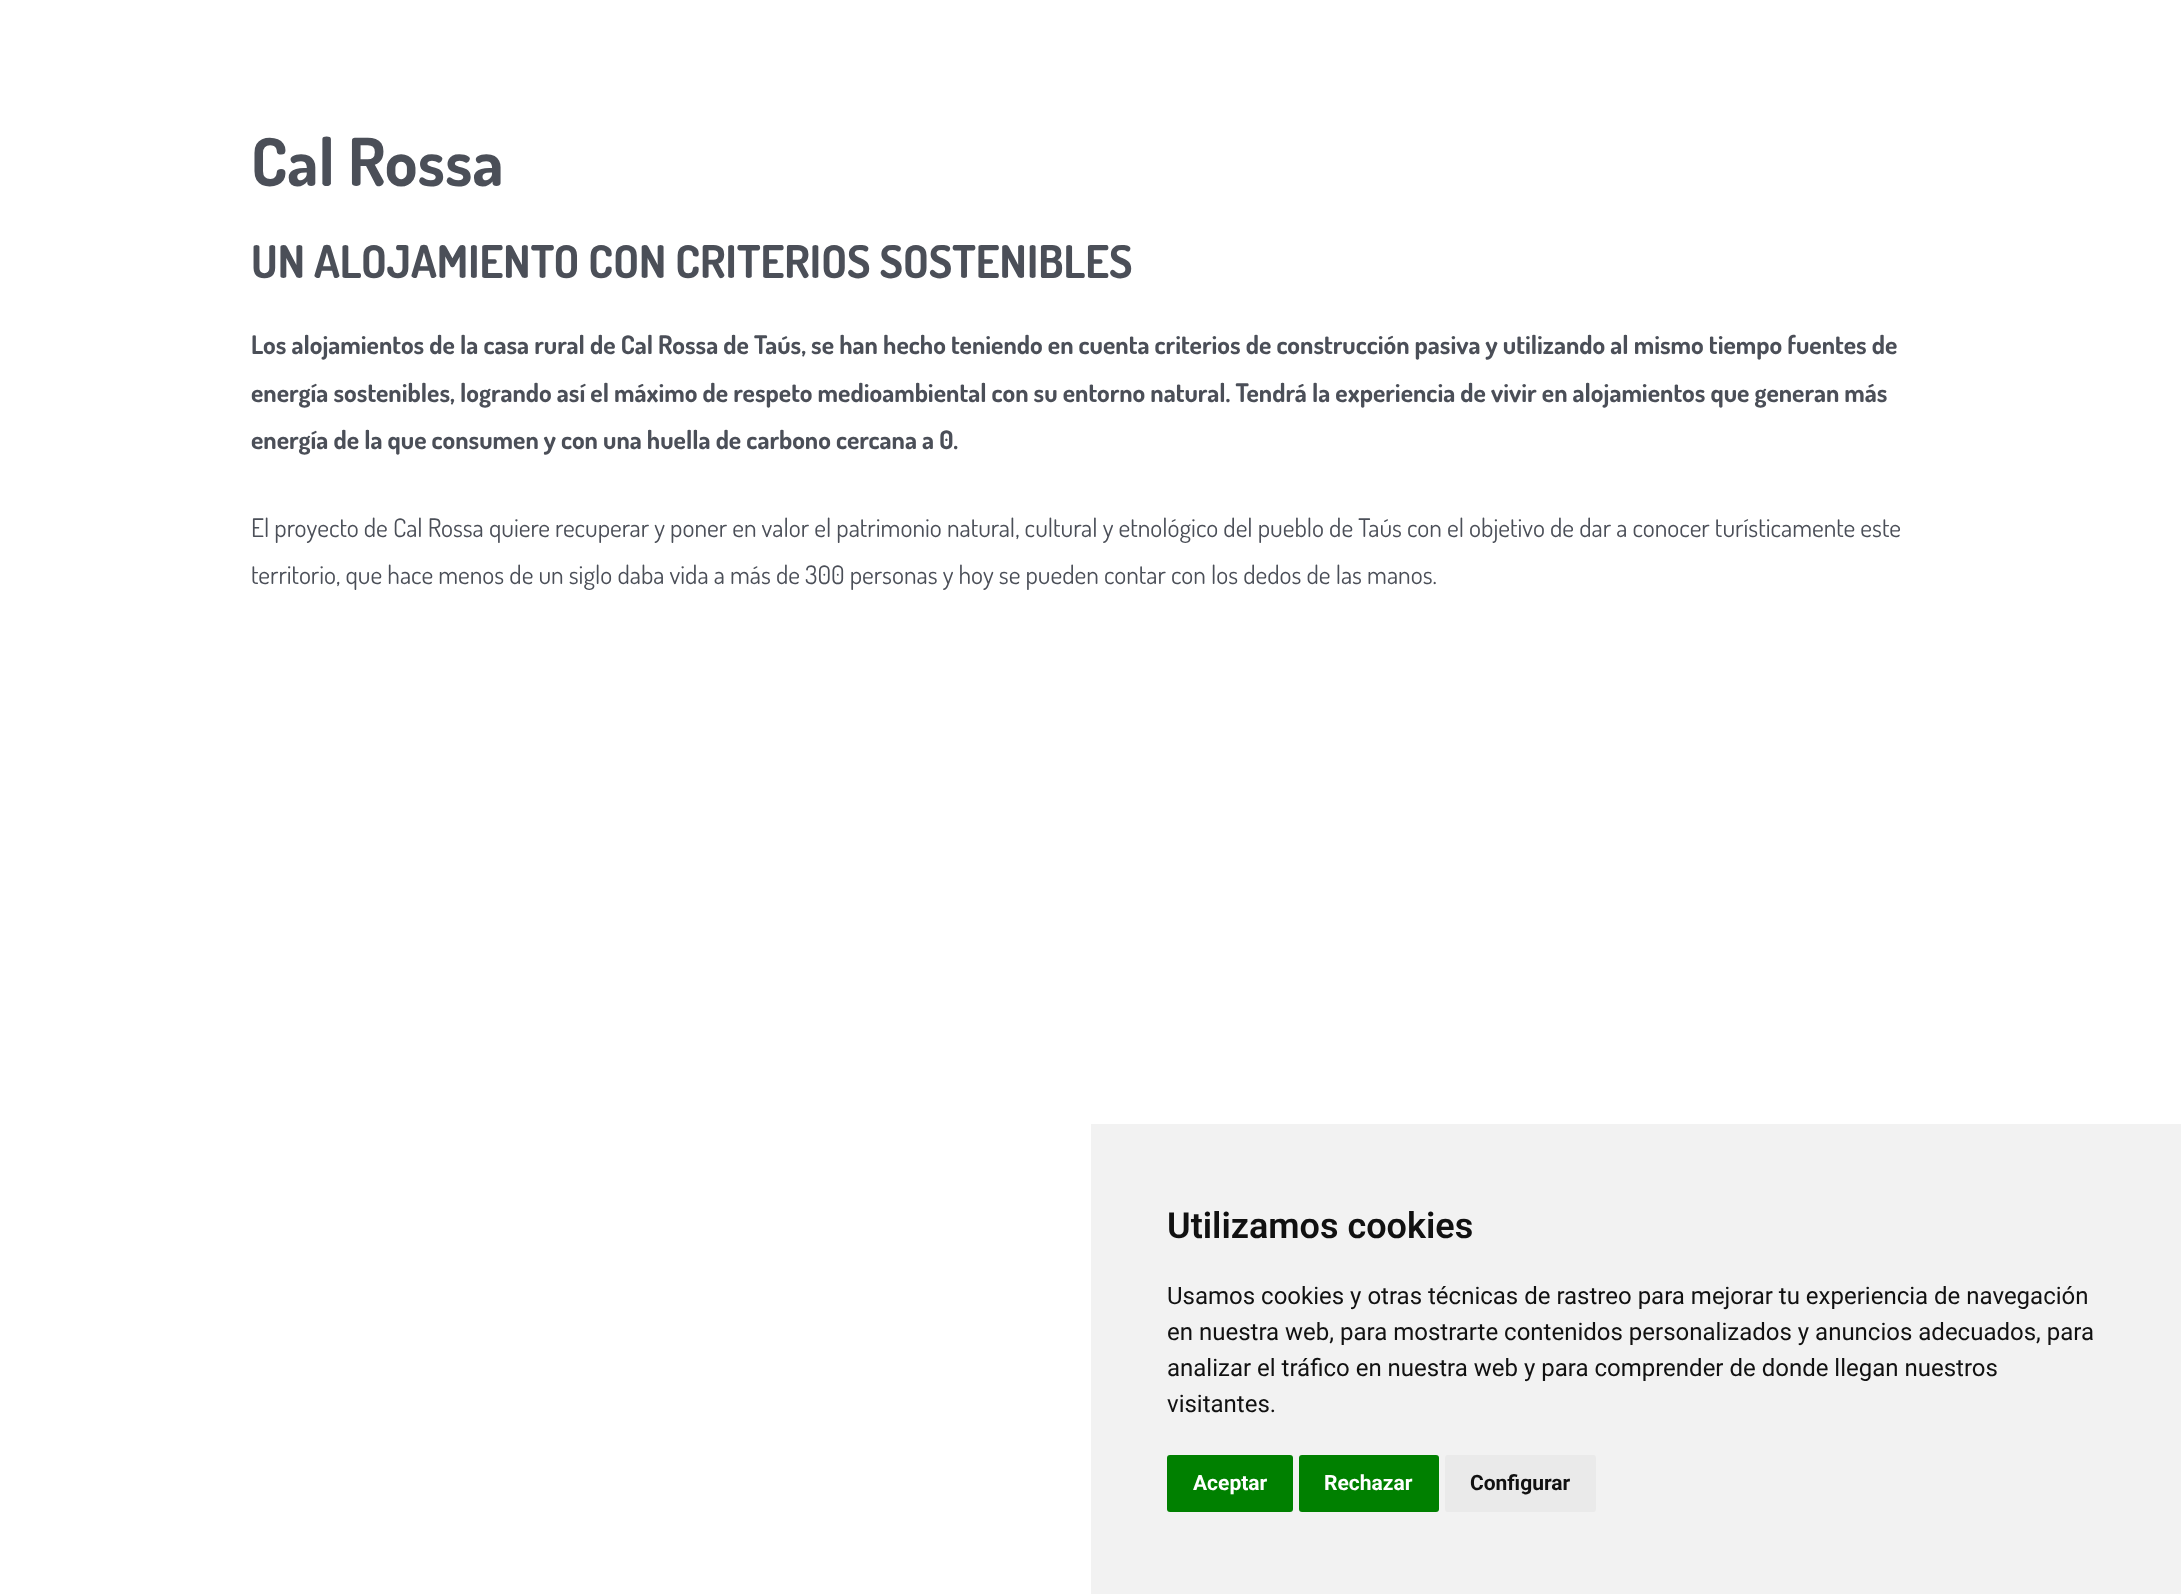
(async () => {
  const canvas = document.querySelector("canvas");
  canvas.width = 2181;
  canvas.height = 1594;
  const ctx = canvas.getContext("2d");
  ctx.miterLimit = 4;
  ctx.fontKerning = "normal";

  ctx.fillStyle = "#ffffff";
  ctx.fillRect(0, 0, 2181, 1594);
  ctx.fillStyle = "#f2f2f2";
  ctx.fillRect(1091, 1124, 1090, 470);
  ctx.fillStyle = "#008000";
  ctx.beginPath();
  ctx.roundRect(1167, 1455, 126, 57, 3);
  ctx.fill();
  ctx.beginPath();
  ctx.roundRect(1299, 1455, 140, 57, 3);
  ctx.fill();
  ctx.fillStyle = "#eaeaea";
  ctx.beginPath();
  ctx.roundRect(1445, 1455, 151, 57, 3);
  ctx.fill();
  ctx.font = "bold 66px Dosis";
  ctx.fillStyle = "#4b4f58";
  ctx.fillText("Cal Rossa", 251, 186);
  ctx.font = "bold 45px Dosis";
  ctx.fillText("UN ALOJAMIENTO CON CRITERIOS SOSTENIBLES", 251, 278);
  ctx.font = "bold 25.5px Dosis";
  for (const [text, x, y] of [
    ["Los alojamientos de la casa rural de Cal Rossa de Taús, se han hecho teniendo en cuenta criterios de construcción pasiva y utilizando al mismo tiempo fuentes de", 251, 354],
    ["energía sostenibles, logrando así el máximo de respeto medioambiental con su entorno natural. Tendrá la experiencia de vivir en alojamientos que generan más", 251, 402],
    ["energía de la que consumen y con una huella de carbono cercana a 0.", 251, 449],
  ]) {
    ctx.fillText(text, x, y);
  }
  ctx.font = "25.5px Dosis";
  ctx.fillText("El proyecto de Cal Rossa quiere recuperar y poner en valor el patrimonio natural, cultural y etnológico del pueblo de Taús con el objetivo de dar a conocer turísticamente este", 251, 537);
  ctx.fillText("territorio, que hace menos de un siglo daba vida a más de 300 personas y hoy se pueden contar con los dedos de las manos.", 251, 584);
  ctx.font = "600 36px Roboto";
  ctx.fillStyle = "#111111";
  ctx.fillText("Utilizamos cookies", 1167, 1238);
  ctx.font = "24px Roboto";
  for (const [text, x, y] of [
    ["Usamos cookies y otras técnicas de rastreo para mejorar tu experiencia de navegación", 1167, 1304],
    ["en nuestra web, para mostrarte contenidos personalizados y anuncios adecuados, para", 1167, 1340],
    ["analizar el tráfico en nuestra web y para comprender de donde llegan nuestros", 1167, 1376],
    ["visitantes.", 1167, 1412],
  ]) {
    ctx.fillText(text, x, y);
  }
  ctx.font = "bold 21px Roboto";
  ctx.fillStyle = "#ffffff";
  ctx.fillText("Aceptar", 1193, 1490);
  ctx.fillText("Rechazar", 1324, 1490);
  ctx.fillStyle = "#111111";
  ctx.fillText("Configurar", 1470, 1490);
})();
